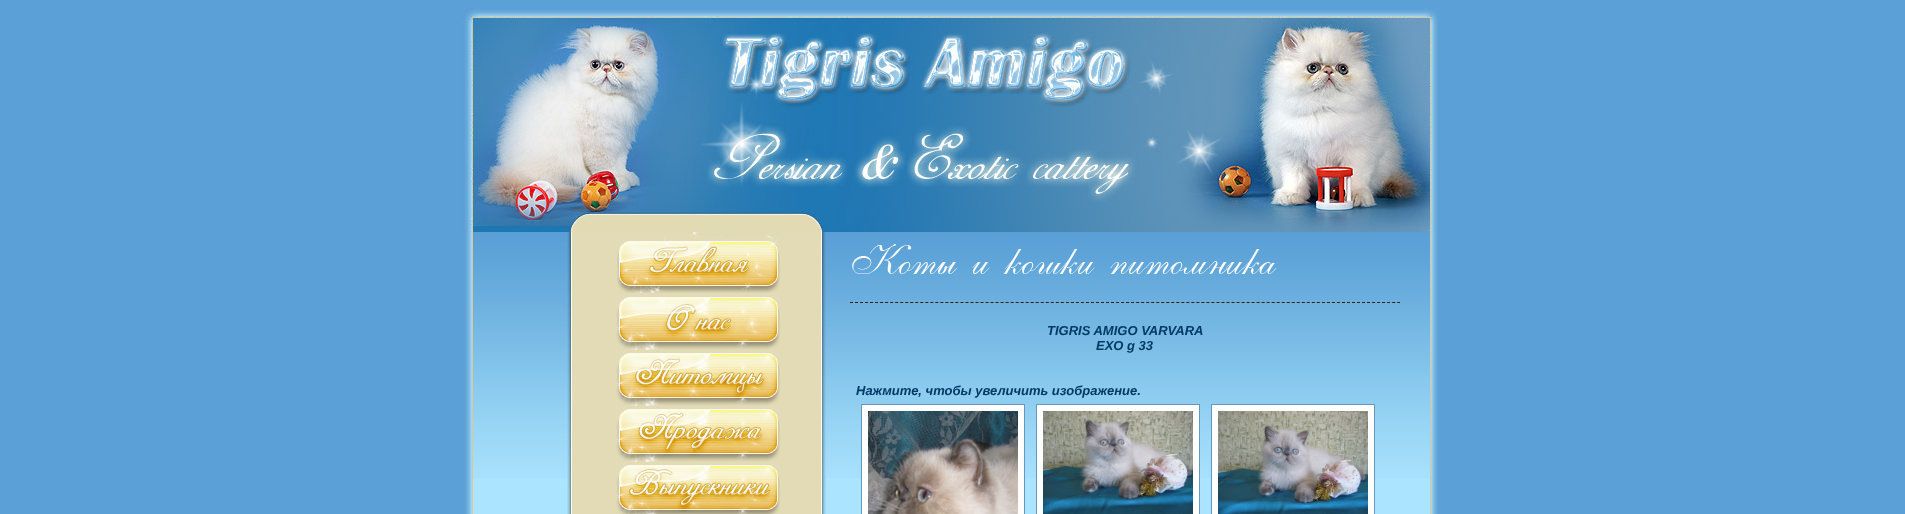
(async () => {
  const canvas = document.querySelector("canvas");
  canvas.width = 1905;
  canvas.height = 514;
  const ctx = canvas.getContext("2d");
  ctx.miterLimit = 4;
  ctx.fontKerning = "normal";
  async function loadImage(src) {
    const img = new Image();
    img.src = src;
    await img.decode();
    return img;
  }
  let path;

  ctx.fillStyle = "#5ba0d6";
  ctx.fillRect(0, 0, 1905, 514);
  ctx.drawImage(await loadImage("img/1.png"), 463, 8, 976, 224);
  ctx.drawImage(await loadImage("img/2.png"), 465, 232, 973, 282);
  ctx.drawImage(await loadImage("img/3.png"), 826, 232, 604, 246);
  ctx.drawImage(await loadImage("img/4.png"), 473, 232, 94, 246);
  ctx.drawImage(await loadImage("img/5.png"), 567, 232, 259, 282);
  ctx.drawImage(await loadImage("img/6.png"), 617, 232, 163, 61);
  ctx.drawImage(await loadImage("img/7.png"), 616, 297, 164, 53);
  ctx.drawImage(await loadImage("img/8.png"), 616, 353, 164, 53);
  ctx.drawImage(await loadImage("img/9.png"), 616, 409, 164, 53);
  ctx.drawImage(await loadImage("img/10.png"), 616, 465, 164, 49);
  ctx.drawImage(await loadImage("img/11.png"), 852, 244, 425, 31);
  path = new Path2D("M850 302.5H1400");
  ctx.strokeStyle = "#2e2304";
  ctx.setLineDash([3, 2.02]);
  ctx.stroke(path);
  ctx.strokeStyle = "#6698bd";
  ctx.setLineDash([]);
  ctx.strokeRect(861.5, 404.5, 163, 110);
  ctx.strokeStyle = "#ffffff";
  ctx.lineWidth = 6;
  ctx.strokeRect(865, 408, 156, 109);
  ctx.drawImage(await loadImage("img/12.png"), 868, 411, 150, 103);
  ctx.strokeStyle = "#6698bd";
  ctx.lineWidth = 1;
  ctx.strokeRect(1036.5, 404.5, 163, 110);
  ctx.strokeStyle = "#ffffff";
  ctx.lineWidth = 6;
  ctx.strokeRect(1040, 408, 156, 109);
  ctx.drawImage(await loadImage("img/13.png"), 1043, 411, 150, 103);
  ctx.strokeStyle = "#6698bd";
  ctx.lineWidth = 1;
  ctx.strokeRect(1211.5, 404.5, 163, 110);
  ctx.strokeStyle = "#ffffff";
  ctx.lineWidth = 6;
  ctx.strokeRect(1215, 408, 156, 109);
  ctx.drawImage(await loadImage("img/14.png"), 1218, 411, 150, 103);
  ctx.font = "italic bold 13px Liberation Sans";
  ctx.fillStyle = "#003a65";
  for (const [text, x, y] of [
    ["TIGRIS AMIGO VARVARA", 1047, 335],
    ["EXO g 33", 1096, 350],
    ["Нажмите, чтобы увеличить изображение.", 856, 395],
  ]) {
    ctx.fillText(text, x, y);
  }
})();
